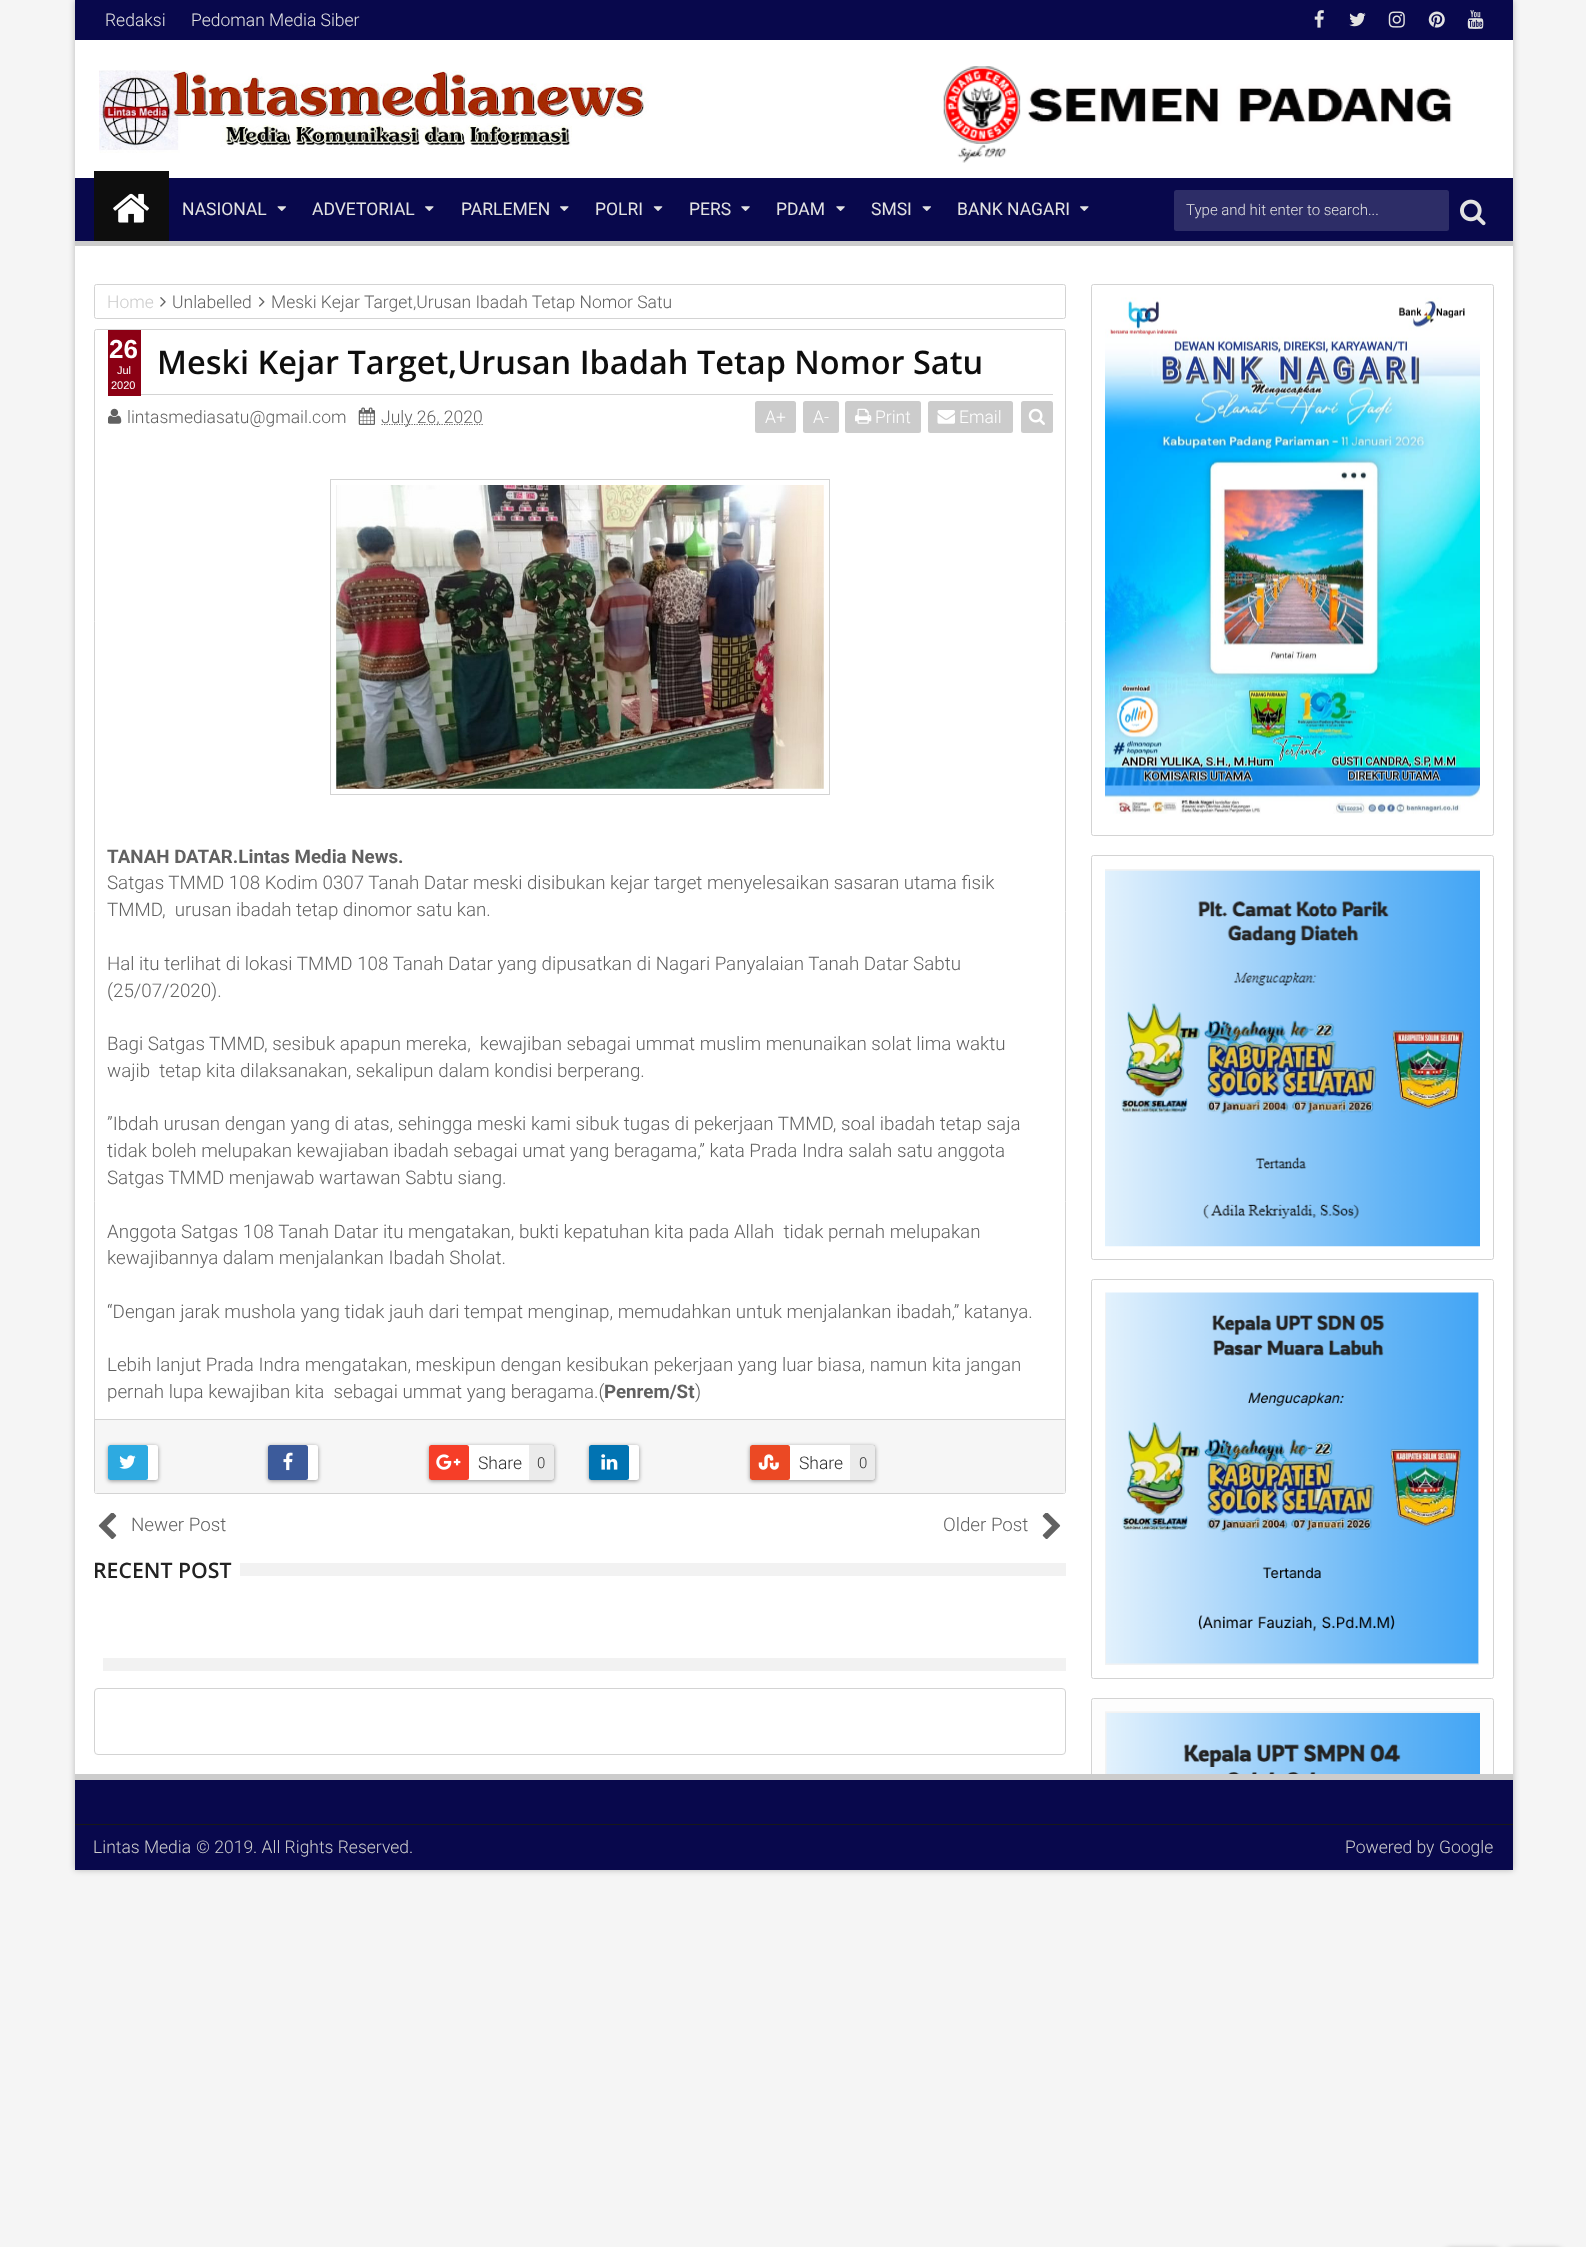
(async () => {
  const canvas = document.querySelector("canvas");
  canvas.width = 1586;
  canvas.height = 2247;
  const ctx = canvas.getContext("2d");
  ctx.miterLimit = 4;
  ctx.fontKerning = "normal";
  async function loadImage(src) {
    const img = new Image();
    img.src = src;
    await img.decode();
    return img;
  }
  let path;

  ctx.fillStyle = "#f5f5f5";
  ctx.fillRect(0, 0, 1586, 2247);
  ctx.fillStyle = "rgba(0, 0, 0, 0.25)";
  ctx.filter = "blur(3px)";
  ctx.beginPath();
  ctx.rect(75, 0, 1438, 1870);
  ctx.fill();
  ctx.filter = "none";
  ctx.fillStyle = "#ffffff";
  ctx.fillRect(75, 40, 1438, 1734);
  ctx.fillStyle = "#08084c";
  ctx.fillRect(75, 0, 1438, 40);
  ctx.drawImage(await loadImage("img/1.png"), 1314, 10, 10, 18);
  ctx.drawImage(await loadImage("img/2.png"), 1349, 12, 17, 15);
  ctx.drawImage(await loadImage("img/3.png"), 1388, 11, 17, 17);
  ctx.drawImage(await loadImage("img/4.png"), 1428, 11, 17, 17);
  ctx.drawImage(await loadImage("img/5.png"), 1467, 10, 17, 19);
  ctx.drawImage(await loadImage("img/6.png"), 99, 70, 550, 83);
  ctx.drawImage(await loadImage("img/7.png"), 943, 66, 509, 97);
  for (const [x, y, w, h, color] of [
    [75, 178, 1438, 63, "#08084c"],
    [75, 241, 1438, 5, "#cccccc"],
    [94, 171, 75, 70, "#0e0e0e"],
  ]) {
    ctx.fillStyle = color;
    ctx.fillRect(x, y, w, h);
  }
  ctx.drawImage(await loadImage("img/8.png"), 113, 193, 36, 30);
  ctx.drawImage(await loadImage("img/9.png"), 277, 206, 9, 5);
  ctx.drawImage(await loadImage("img/10.png"), 425, 206, 9, 5);
  ctx.drawImage(await loadImage("img/10.png"), 560, 206, 9, 5);
  ctx.drawImage(await loadImage("img/11.png"), 653, 206, 10, 5);
  ctx.drawImage(await loadImage("img/12.png"), 741, 206, 9, 5);
  ctx.drawImage(await loadImage("img/12.png"), 836, 206, 9, 5);
  ctx.drawImage(await loadImage("img/9.png"), 922, 206, 9, 5);
  ctx.drawImage(await loadImage("img/10.png"), 1080, 206, 9, 5);
  ctx.fillStyle = "#2d2d67";
  ctx.beginPath();
  ctx.roundRect(1174, 190, 275, 41, 2.5);
  ctx.fill();
  ctx.drawImage(await loadImage("img/13.png"), 1460, 199, 26, 27);
  ctx.beginPath();
  ctx.roundRect(94.5, 284.5, 971, 34, 2);
  ctx.strokeStyle = "#d3d3d3";
  ctx.stroke();
  ctx.drawImage(await loadImage("img/14.png"), 160, 297, 6, 10);
  ctx.drawImage(await loadImage("img/15.png"), 258, 297, 7, 10);
  ctx.beginPath();
  ctx.roundRect(94.5, 329.5, 971, 1164, 2);
  ctx.stroke();
  ctx.fillStyle = "#8c0014";
  ctx.fillRect(108, 330, 33, 66);
  ctx.fillStyle = "#d3d3d3";
  ctx.fillRect(141, 394, 912, 1);
  ctx.drawImage(await loadImage("img/16.png"), 108, 408, 14, 16);
  ctx.drawImage(await loadImage("img/17.png"), 358, 407, 17, 18);
  path = new Path2D("M381.5 424.5H483");
  ctx.strokeStyle = "#616161";
  ctx.lineWidth = 1.2;
  ctx.setLineDash([1.25, 1.25]);
  ctx.stroke(path);
  ctx.fillStyle = "#cccccc";
  ctx.beginPath();
  ctx.roundRect(755, 401, 41, 32, 2.5);
  ctx.fill();
  ctx.beginPath();
  ctx.roundRect(803, 401, 36, 32, 2.5);
  ctx.fill();
  ctx.beginPath();
  ctx.roundRect(845, 401, 76, 32, 2.5);
  ctx.fill();
  ctx.drawImage(await loadImage("img/18.png"), 855, 408, 17, 16);
  ctx.beginPath();
  ctx.roundRect(928, 401, 85, 32, 2.5);
  ctx.fill();
  ctx.drawImage(await loadImage("img/19.png"), 937, 410, 18, 14);
  ctx.beginPath();
  ctx.roundRect(1021, 401, 32, 32, 2.5);
  ctx.fill();
  ctx.drawImage(await loadImage("img/20.png"), 1028, 408, 17, 17);
  ctx.strokeStyle = "#d3d3d3";
  ctx.lineWidth = 1;
  ctx.setLineDash([]);
  ctx.strokeRect(330.5, 479.5, 499, 315);
  ctx.drawImage(await loadImage("img/21.png"), 336, 485, 488, 304);
  ctx.fillStyle = "#f6f6f6";
  ctx.fillRect(95, 1420, 970, 73);
  ctx.fillStyle = "#d3d3d3";
  ctx.fillRect(95, 1419, 970, 1);
  ctx.fillStyle = "rgba(0, 0, 0, 0.4)";
  ctx.filter = "blur(2px)";
  ctx.beginPath();
  ctx.roundRect(108, 1446, 50, 35, 2.5);
  ctx.fill();
  ctx.filter = "none";
  ctx.fillStyle = "#ffffff";
  ctx.beginPath();
  ctx.roundRect(108, 1445, 50, 35, 2.5);
  ctx.fill();
  ctx.fillStyle = "#2daae1";
  ctx.beginPath();
  ctx.roundRect(108, 1445, 40, 35, 2.5);
  ctx.fill();
  ctx.drawImage(await loadImage("img/22.png"), 119, 1455, 17, 14);
  ctx.fillStyle = "rgba(0, 0, 0, 0.4)";
  ctx.filter = "blur(2px)";
  ctx.beginPath();
  ctx.roundRect(268, 1446, 50, 35, 2.5);
  ctx.fill();
  ctx.filter = "none";
  ctx.fillStyle = "#ffffff";
  ctx.beginPath();
  ctx.roundRect(268, 1445, 50, 35, 2.5);
  ctx.fill();
  ctx.fillStyle = "#3c5b9b";
  ctx.beginPath();
  ctx.roundRect(268, 1445, 40, 35, 2.5);
  ctx.fill();
  ctx.drawImage(await loadImage("img/23.png"), 283, 1452, 10, 19);
  ctx.fillStyle = "rgba(0, 0, 0, 0.4)";
  ctx.filter = "blur(2px)";
  ctx.beginPath();
  ctx.roundRect(429, 1446, 125, 35, 2.5);
  ctx.fill();
  ctx.filter = "none";
  ctx.fillStyle = "#ffffff";
  ctx.beginPath();
  ctx.roundRect(429, 1445, 125, 35, 2.5);
  ctx.fill();
  ctx.fillStyle = "#f63e28";
  ctx.beginPath();
  ctx.roundRect(429, 1445, 40, 35, 2.5);
  ctx.fill();
  ctx.drawImage(await loadImage("img/24.png"), 436, 1454, 25, 16);
  ctx.fillStyle = "rgba(0, 0, 0, 0.08)";
  ctx.fillRect(529, 1445, 25, 35);
  ctx.fillStyle = "rgba(0, 0, 0, 0.4)";
  ctx.filter = "blur(2px)";
  ctx.beginPath();
  ctx.roundRect(589, 1446, 50, 35, 2.5);
  ctx.fill();
  ctx.filter = "none";
  ctx.fillStyle = "#ffffff";
  ctx.beginPath();
  ctx.roundRect(589, 1445, 50, 35, 2.5);
  ctx.fill();
  ctx.fillStyle = "#0173b2";
  ctx.beginPath();
  ctx.roundRect(589, 1445, 40, 35, 2.5);
  ctx.fill();
  ctx.drawImage(await loadImage("img/25.png"), 601, 1454, 17, 16);
  ctx.fillStyle = "rgba(0, 0, 0, 0.4)";
  ctx.filter = "blur(2px)";
  ctx.beginPath();
  ctx.roundRect(750, 1446, 125, 35, 2.5);
  ctx.fill();
  ctx.filter = "none";
  ctx.fillStyle = "#ffffff";
  ctx.beginPath();
  ctx.roundRect(750, 1445, 125, 35, 2.5);
  ctx.fill();
  ctx.fillStyle = "#eb4924";
  ctx.beginPath();
  ctx.roundRect(750, 1445, 40, 35, 2.5);
  ctx.fill();
  ctx.drawImage(await loadImage("img/26.png"), 758, 1454, 21, 16);
  ctx.fillStyle = "rgba(0, 0, 0, 0.08)";
  ctx.fillRect(850, 1445, 25, 35);
  ctx.drawImage(await loadImage("img/27.png"), 98, 1513, 19, 26);
  ctx.drawImage(await loadImage("img/28.png"), 1042, 1513, 19, 26);
  ctx.fillStyle = "#f2f2f2";
  ctx.fillRect(240, 1563, 826, 13);
  ctx.fillRect(103, 1658, 963, 13);
  ctx.beginPath();
  ctx.roundRect(94.5, 1688.5, 971, 66, 3.5);
  ctx.stroke();
  ctx.beginPath();
  ctx.roundRect(1091.5, 284.5, 402, 551, 2);
  ctx.stroke();
  ctx.drawImage(await loadImage("img/29.png"), 1105, 297, 375, 517);
  ctx.beginPath();
  ctx.roundRect(1091.5, 855.5, 402, 404, 2);
  ctx.stroke();
  ctx.drawImage(await loadImage("img/30.png"), 1105, 869, 375, 378);
  ctx.beginPath();
  ctx.roundRect(1091.5, 1279.5, 402, 399, 2);
  ctx.stroke();
  ctx.drawImage(await loadImage("img/31.png"), 1105, 1292, 374, 373);
  ctx.fillStyle = "#fdfdfd";
  ctx.beginPath();
  ctx.roundRect(1091, 1698, 403, 172, [2.5, 2.5, 0, 0]);
  ctx.fill();
  ctx.save();
  ctx.beginPath();
  ctx.rect(1091, 1698, 403, 172);
  ctx.clip();
  ctx.beginPath();
  ctx.roundRect(1091.5, 1698.5, 402, 402, 2);
  ctx.stroke();
  ctx.restore();
  ctx.drawImage(await loadImage("img/32.png"), 1105, 1711, 375, 63);
  for (const [x, y, w, h, color] of [
    [75, 1780, 1438, 90, "#08084c"],
    [75, 1774, 1438, 6, "#cccccc"],
    [75, 1824, 1438, 1, "#181818"],
  ]) {
    ctx.fillStyle = color;
    ctx.fillRect(x, y, w, h);
  }
  ctx.fillStyle = "rgba(0, 0, 0, 0.5)";
  ctx.filter = "blur(3px)";
  ctx.beginPath();
  ctx.roundRect(1446, 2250, 53, 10, 4);
  ctx.fill();
  ctx.filter = "none";
  ctx.filter = "blur(3px)";
  ctx.beginPath();
  ctx.roundRect(1509, 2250, 52, 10, 4);
  ctx.fill();
  ctx.filter = "none";
  ctx.font = "300 17.5px Roboto";
  ctx.fillStyle = "#e2e2e2";
  ctx.fillText("Redaksi", 105, 26);
  ctx.fillText("Pedoman Media Siber", 191, 26);
  ctx.font = "17.5px Roboto";
  for (const [text, x, y] of [
    ["NASIONAL", 182, 215],
    ["ADVETORIAL", 312, 215],
    ["PARLEMEN", 461, 215],
    ["POLRI", 595, 215],
    ["PERS", 689, 215],
    ["PDAM", 776, 215],
    ["SMSI", 871, 215],
    ["BANK NAGARI", 957, 215],
  ]) {
    ctx.fillText(text, x, y);
  }
  ctx.font = "300 15px Roboto";
  ctx.fillText("Type and hit enter to search...", 1186, 215);
  ctx.font = "300 17.5px Roboto";
  ctx.fillStyle = "#cccccc";
  ctx.fillText("Home", 107, 308);
  ctx.fillStyle = "#616161";
  ctx.fillText("Unlabelled", 172, 308);
  ctx.fillText("Meski Kejar Target,Urusan Ibadah Tetap Nomor Satu", 271, 308);
  ctx.font = "bold 26px Liberation Sans";
  ctx.fillStyle = "#ffffff";
  ctx.fillText("26", 109, 358);
  ctx.font = "11px Liberation Sans";
  ctx.fillText("Jul", 117, 374);
  ctx.fillText("2020", 111, 389);
  ctx.font = "600 32.5px Open Sans";
  ctx.fillStyle = "#0e0e0e";
  ctx.fillText("Meski Kejar Target,Urusan Ibadah Tetap Nomor Satu", 157, 374);
  ctx.font = "300 17.5px Roboto";
  ctx.fillStyle = "#616161";
  ctx.fillText("lintasmediasatu@gmail.com", 127, 423);
  ctx.fillText("July 26, 2020", 381, 423);
  ctx.fillStyle = "#ffffff";
  for (const [text, x, y] of [
    ["A+", 765, 423],
    ["A-", 813, 423],
    ["Print", 875, 423],
    ["Email", 959, 423],
  ]) {
    ctx.fillText(text, x, y);
  }
  ctx.font = "bold 18.75px Roboto";
  ctx.fillStyle = "#616161";
  ctx.fillText("TANAH DATAR.Lintas Media News.", 107, 863);
  ctx.font = "300 18.75px Roboto";
  for (const [text, x, y] of [
    ["Satgas TMMD 108 Kodim 0307 Tanah Datar meski disibukan kejar target menyelesaikan sasaran utama fisik", 107, 889],
    ["TMMD,  urusan ibadah tetap dinomor satu kan.", 107, 916],
    ["Hal itu terlihat di lokasi TMMD 108 Tanah Datar yang dipusatkan di Nagari Panyalaian Tanah Datar Sabtu", 107, 970],
    ["(25/07/2020).", 107, 997],
    ["Bagi Satgas TMMD, sesibuk apapun mereka,  kewajiban sebagai ummat muslim menunaikan solat lima waktu", 107, 1050],
    ["wajib  tetap kita dilaksanakan, sekalipun dalam kondisi berperang.", 107, 1077],
    ["”Ibdah urusan dengan yang di atas, sehingga meski kami sibuk tugas di pekerjaan TMMD, soal ibadah tetap saja", 107, 1130],
    ["tidak boleh melupakan kewajiaban ibadah sebagai umat yang beragama,” kata Prada Indra salah satu anggota", 107, 1157],
    ["Satgas TMMD menjawab wartawan Sabtu siang.", 107, 1184],
    ["Anggota Satgas 108 Tanah Datar itu mengatakan, bukti kepatuhan kita pada Allah  tidak pernah melupakan", 107, 1238],
    ["kewajibannya dalam menjalankan Ibadah Sholat.", 107, 1264],
    ["“Dengan jarak mushola yang tidak jauh dari tempat menginap, memudahkan untuk menjalankan ibadah,” katanya.", 107, 1318],
    ["Lebih lanjut Prada Indra mengatakan, meskipun dengan kesibukan pekerjaan yang luar biasa, namun kita jangan", 107, 1371],
    ["pernah lupa kewajiban kita  sebagai ummat yang beragama.(", 107, 1398],
  ]) {
    ctx.fillText(text, x, y);
  }
  ctx.font = "bold 18.75px Roboto";
  ctx.fillText("Penrem/St", 604, 1398);
  ctx.font = "300 18.75px Roboto";
  ctx.fillText(")", 695, 1398);
  ctx.font = "300 17.5px Roboto";
  ctx.fillStyle = "#2e2e2e";
  ctx.fillText("Share", 478, 1469);
  ctx.font = "300 15px Roboto";
  ctx.fillText("0", 537, 1468);
  ctx.font = "300 17.5px Roboto";
  ctx.fillText("Share", 799, 1469);
  ctx.font = "300 15px Roboto";
  ctx.fillText("0", 859, 1468);
  ctx.font = "300 18.75px Roboto";
  ctx.fillStyle = "#616161";
  ctx.fillText("Newer Post", 131, 1531);
  ctx.fillText("Older Post", 943, 1531);
  ctx.font = "600 21.25px Open Sans";
  ctx.fillStyle = "#222222";
  ctx.fillText("RECENT POST", 93, 1578);
  ctx.font = "300 17.5px Roboto";
  ctx.fillStyle = "#cccccc";
  for (const [text, x, y] of [
    ["Lintas Media", 93, 1853],
    ["© 2019. All Rights Reserved.", 196, 1853],
    ["Powered by", 1345, 1853],
    ["Google", 1439, 1853],
  ]) {
    ctx.fillText(text, x, y);
  }
})();
